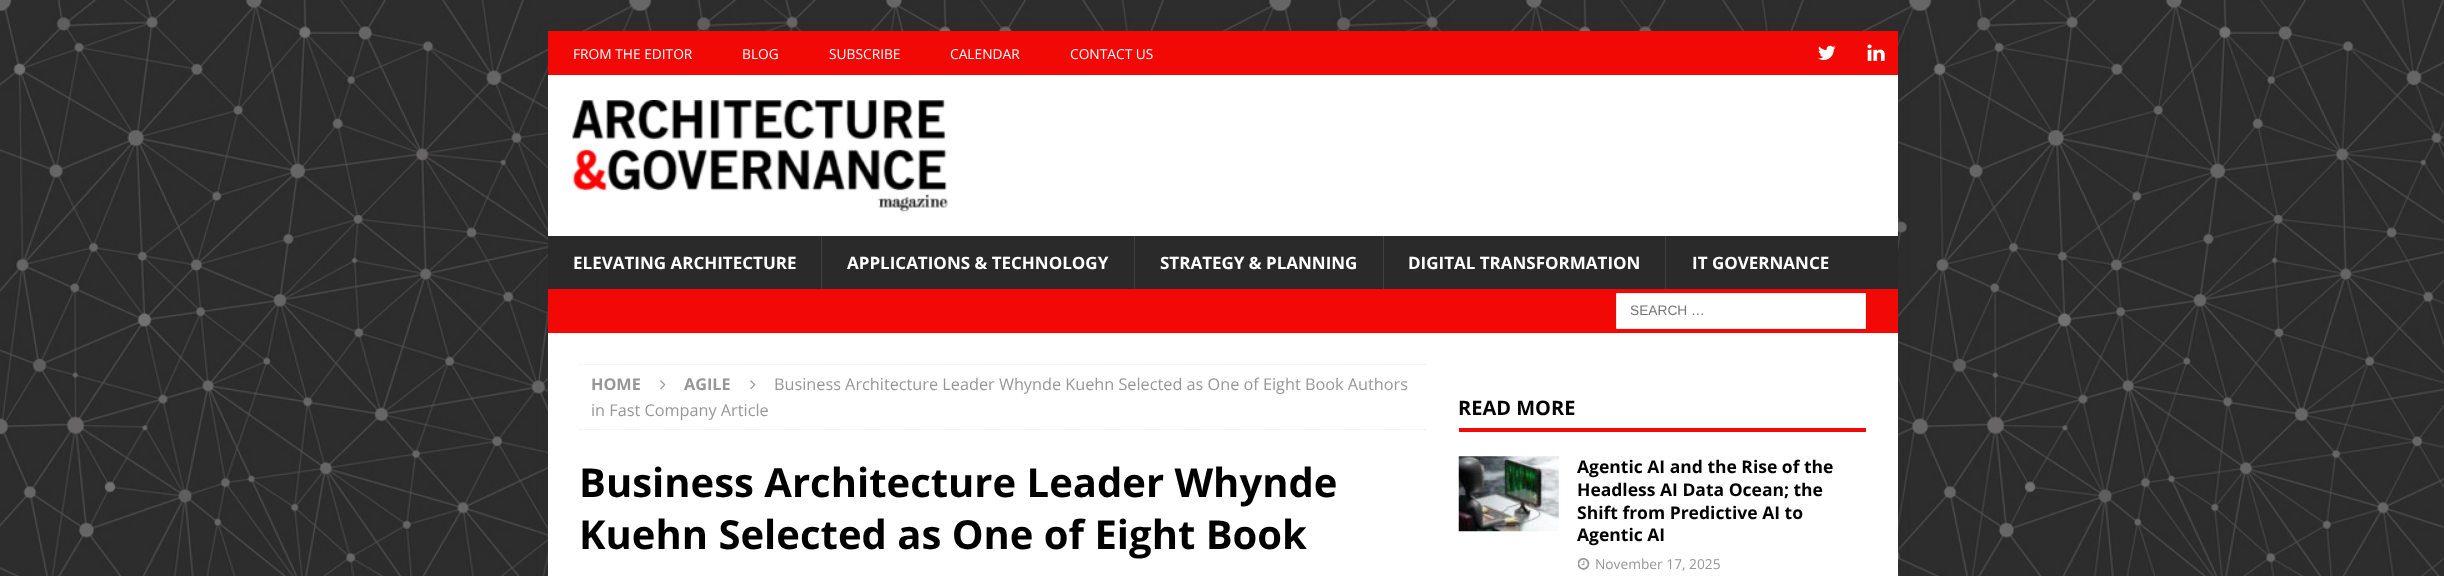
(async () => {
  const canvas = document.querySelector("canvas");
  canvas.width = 2444;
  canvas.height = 576;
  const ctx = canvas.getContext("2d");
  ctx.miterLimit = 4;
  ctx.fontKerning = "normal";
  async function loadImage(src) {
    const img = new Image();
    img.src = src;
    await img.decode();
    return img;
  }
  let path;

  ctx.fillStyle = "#ffffff";
  ctx.fillRect(0, 0, 2444, 576);
  ctx.drawImage(await loadImage("img/1.png"), 0, 0, 2444, 576);
  ctx.fillStyle = "rgba(50, 50, 50, 0.17)";
  ctx.filter = "blur(6px)";
  ctx.beginPath();
  ctx.rect(548, 31, 1350, 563);
  ctx.fill();
  ctx.filter = "none";
  ctx.fillStyle = "#f20905";
  ctx.fillRect(548, 31, 1350, 44);
  ctx.drawImage(await loadImage("img/2.png"), 1818, 45, 18, 15);
  ctx.drawImage(await loadImage("img/3.png"), 1867, 44, 18, 17);
  ctx.fillStyle = "#ffffff";
  ctx.fillRect(548, 75, 1350, 161);
  ctx.drawImage(await loadImage("img/4.png"), 572, 100, 376, 112);
  for (const [x, y, w, h, color] of [
    [548, 236, 1350, 53, "#2a2a2a"],
    [821, 236, 1, 53, "#3f3f3f"],
    [1134, 236, 1, 53, "#3f3f3f"],
    [1383, 236, 1, 53, "#3f3f3f"],
    [1665, 236, 1, 53, "#3f3f3f"],
    [548, 289, 1350, 44, "#f20905"],
  ]) {
    ctx.fillStyle = color;
    ctx.fillRect(x, y, w, h);
  }
  ctx.fillStyle = "#ffffff";
  ctx.beginPath();
  ctx.rect(1616.5, 293.5, 249, 35);
  ctx.fill();
  ctx.strokeStyle = "#ebebeb";
  ctx.stroke();
  ctx.fillRect(548, 333, 1350, 243);
  ctx.save();
  ctx.beginPath();
  ctx.rect(579, 364, 847, 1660);
  ctx.clip();
  path = new Path2D("M579 364.5H1426");
  ctx.lineWidth = 1.2;
  ctx.setLineDash([1.25, 1.25]);
  ctx.stroke(path);
  ctx.restore();
  path = new Path2D("M579 429.5H1426");
  ctx.lineWidth = 1.2;
  ctx.setLineDash([1.25, 1.25]);
  ctx.stroke(path);
  ctx.drawImage(await loadImage("img/5.png"), 660, 380, 6, 10);
  ctx.drawImage(await loadImage("img/5.png"), 750, 380, 6, 10);
  ctx.fillStyle = "#f20905";
  ctx.fillRect(1459, 428, 407, 4);
  ctx.drawImage(await loadImage("img/6.png"), 1458, 456, 101, 76);
  ctx.drawImage(await loadImage("img/7.png"), 1578, 558, 12, 12);
  ctx.font = "13.75px Open Sans";
  ctx.fillStyle = "#ffffff";
  for (const [text, x, y] of [
    ["FROM THE EDITOR", 573, 59],
    ["BLOG", 742, 59],
    ["SUBSCRIBE", 829, 59],
    ["CALENDAR", 950, 59],
    ["CONTACT US", 1070, 59],
  ]) {
    ctx.fillText(text, x, y);
  }
  ctx.font = "bold 17px Open Sans";
  for (const [text, x, y] of [
    ["ELEVATING ARCHITECTURE", 573, 269],
    ["APPLICATIONS & TECHNOLOGY", 847, 269],
    ["STRATEGY & PLANNING", 1160, 269],
    ["DIGITAL TRANSFORMATION", 1408, 269],
    ["IT GOVERNANCE", 1692, 269],
  ]) {
    ctx.fillText(text, x, y);
  }
  ctx.font = "13.75px Liberation Sans";
  ctx.fillStyle = "#757575";
  ctx.fillText("SEARCH …", 1630, 315);
  ctx.font = "bold 16.25px Open Sans";
  ctx.fillStyle = "#979797";
  ctx.fillText("HOME", 591, 390);
  ctx.fillText("AGILE", 684, 390);
  ctx.font = "16.25px Open Sans";
  ctx.fillText("Business Architecture Leader Whynde Kuehn Selected as One of Eight Book Authors", 774, 390);
  ctx.fillText("in Fast Company Article", 591, 416);
  ctx.font = "bold 40px Open Sans";
  ctx.fillStyle = "#000000";
  ctx.fillText("Business Architecture Leader Whynde", 579, 497);
  ctx.fillText("Kuehn Selected as One of Eight Book", 579, 549);
  ctx.font = "bold 20px Open Sans";
  ctx.fillText("READ MORE", 1458, 415);
  ctx.font = "bold 17.5px Open Sans";
  for (const [text, x, y] of [
    ["Agentic AI and the Rise of the", 1577, 473],
    ["Headless AI Data Ocean; the", 1577, 496],
    ["Shift from Predictive AI to", 1577, 519],
    ["Agentic AI", 1577, 541],
  ]) {
    ctx.fillText(text, x, y);
  }
  ctx.font = "13.75px Open Sans";
  ctx.fillStyle = "#979797";
  ctx.fillText("November 17, 2025", 1595, 569);
})();
